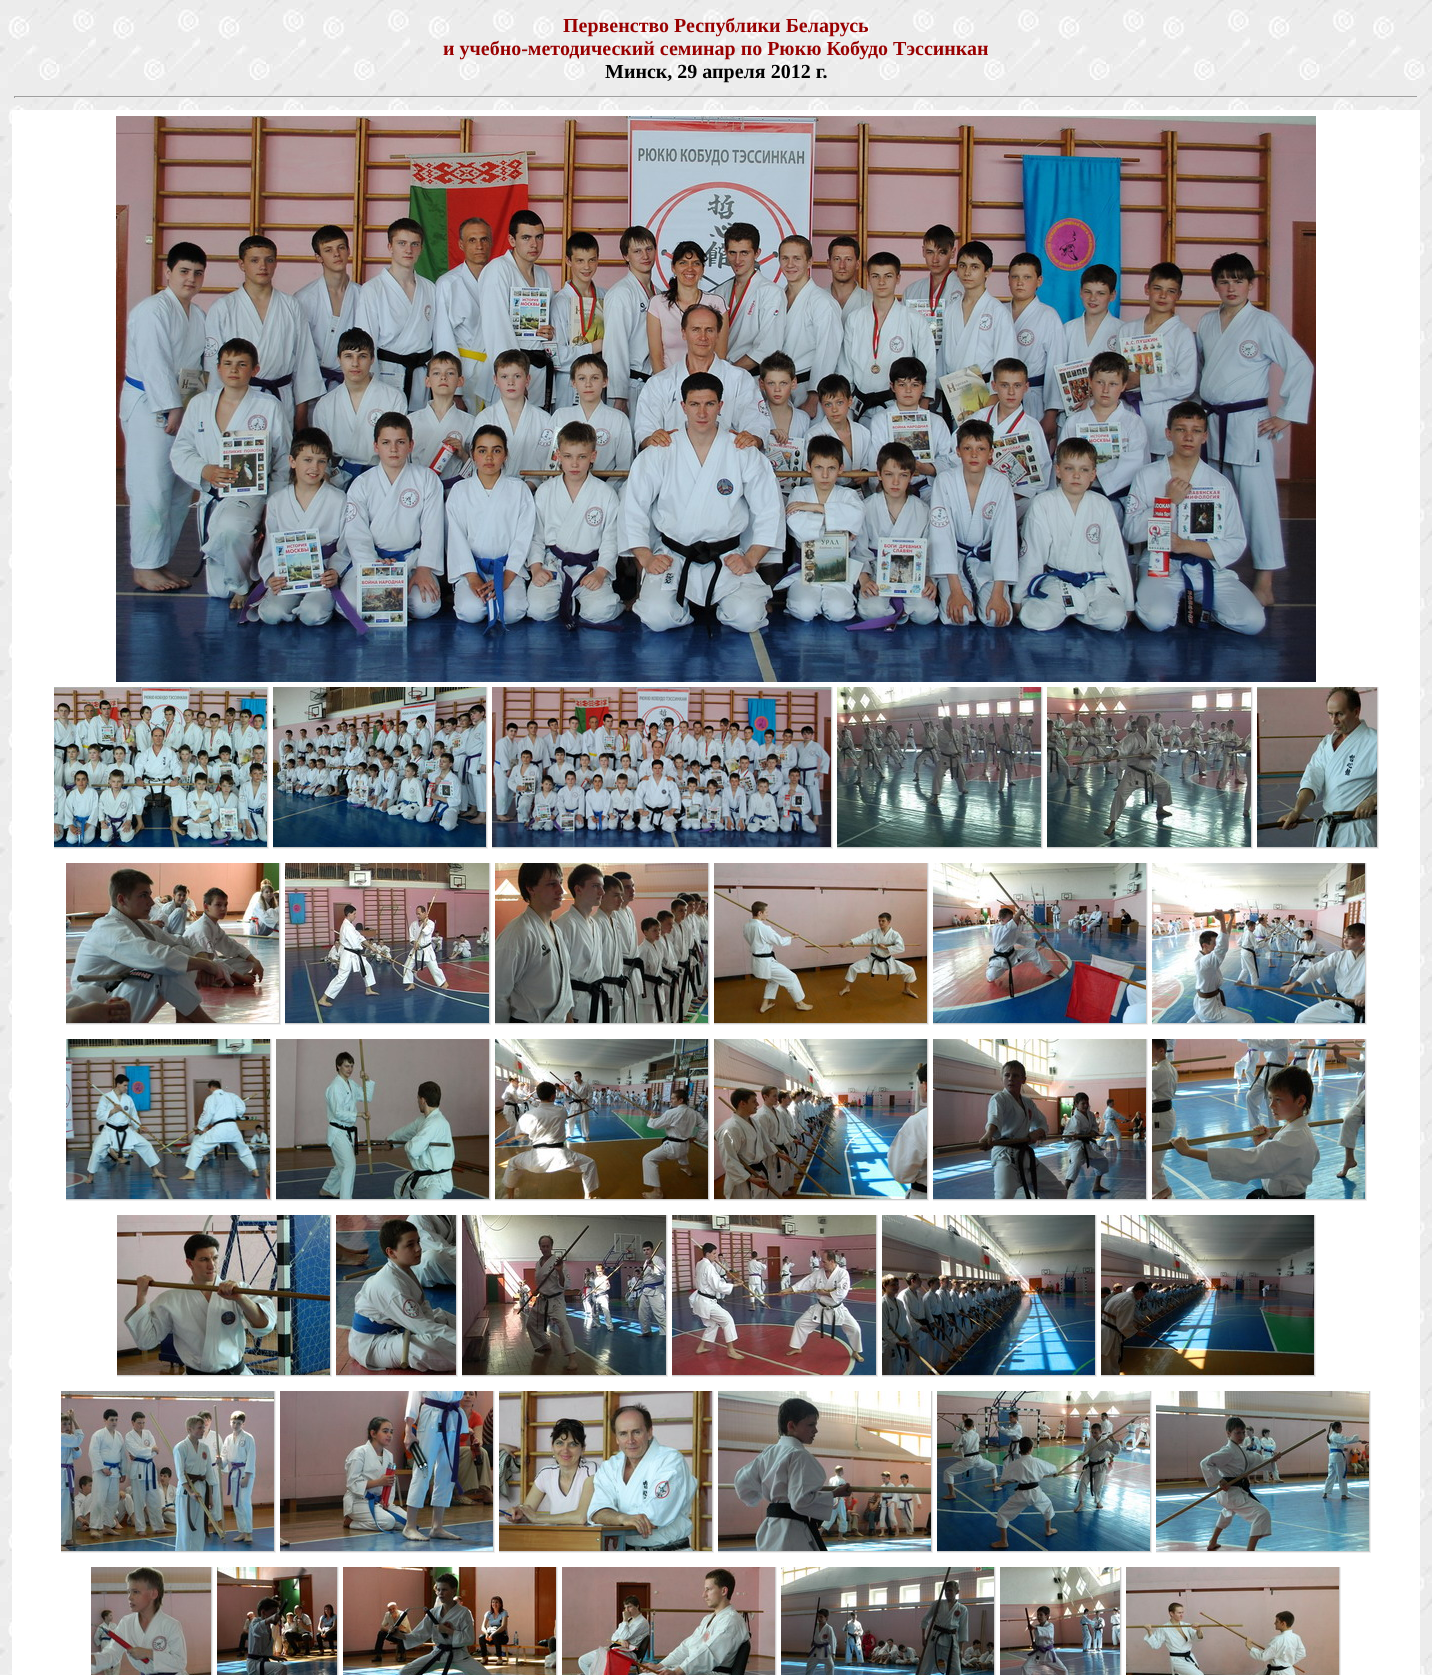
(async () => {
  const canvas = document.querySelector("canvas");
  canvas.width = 1432;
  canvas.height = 1675;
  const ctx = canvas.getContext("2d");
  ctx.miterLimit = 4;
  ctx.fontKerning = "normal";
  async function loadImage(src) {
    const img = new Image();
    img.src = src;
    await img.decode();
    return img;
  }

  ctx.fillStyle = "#ffffff";
  ctx.fillRect(0, 0, 1432, 1675);
  ctx.drawImage(await loadImage("img/1.png"), 0, 0, 1432, 1675);
  for (const [x, y, w, h, color] of [
    [14, 96, 1404, 1, "#9f9f9f"],
    [1417, 96, 1, 2, "#eeeeee"],
    [35, 97, 1366, 1, "#eeeeee"],
    [14, 96, 1, 2, "#9f9f9f"],
    [12, 110, 1408, 1565, "#ffffff"],
  ]) {
    ctx.fillStyle = color;
    ctx.fillRect(x, y, w, h);
  }
  ctx.drawImage(await loadImage("img/2.png"), 116, 116, 1200, 566);
  ctx.fillStyle = "#cccccc";
  ctx.fillRect(54, 687, 214, 161);
  ctx.drawImage(await loadImage("img/3.png"), 54, 687, 213, 160);
  ctx.fillStyle = "#eeeeee";
  ctx.fillRect(268, 687, 1, 162);
  ctx.fillStyle = "#cccccc";
  ctx.fillRect(273, 687, 214, 161);
  ctx.drawImage(await loadImage("img/4.png"), 273, 687, 213, 160);
  ctx.fillStyle = "#eeeeee";
  ctx.fillRect(487, 687, 1, 162);
  ctx.fillStyle = "#cccccc";
  ctx.fillRect(492, 687, 340, 161);
  ctx.drawImage(await loadImage("img/5.png"), 492, 687, 339, 160);
  ctx.fillStyle = "#eeeeee";
  ctx.fillRect(832, 687, 1, 162);
  ctx.fillStyle = "#cccccc";
  ctx.fillRect(837, 687, 205, 161);
  ctx.drawImage(await loadImage("img/6.png"), 837, 687, 204, 160);
  ctx.fillStyle = "#eeeeee";
  ctx.fillRect(1042, 687, 1, 162);
  ctx.fillStyle = "#cccccc";
  ctx.fillRect(1047, 687, 205, 161);
  ctx.drawImage(await loadImage("img/7.png"), 1047, 687, 204, 160);
  for (const [x, y, w, h, color] of [
    [1252, 687, 1, 162, "#eeeeee"],
    [1257, 687, 121, 161, "#cccccc"],
    [54, 848, 215, 1, "#eeeeee"],
    [273, 848, 215, 1, "#eeeeee"],
    [492, 848, 341, 1, "#eeeeee"],
    [837, 848, 206, 1, "#eeeeee"],
    [1047, 848, 206, 1, "#eeeeee"],
  ]) {
    ctx.fillStyle = color;
    ctx.fillRect(x, y, w, h);
  }
  ctx.drawImage(await loadImage("img/8.png"), 1257, 687, 120, 160);
  for (const [x, y, w, h, color] of [
    [1378, 687, 1, 162, "#eeeeee"],
    [1257, 848, 122, 1, "#eeeeee"],
    [66, 863, 214, 161, "#cccccc"],
  ]) {
    ctx.fillStyle = color;
    ctx.fillRect(x, y, w, h);
  }
  ctx.drawImage(await loadImage("img/9.png"), 66, 863, 213, 160);
  ctx.fillStyle = "#eeeeee";
  ctx.fillRect(280, 863, 1, 162);
  ctx.fillStyle = "#cccccc";
  ctx.fillRect(285, 863, 205, 161);
  ctx.drawImage(await loadImage("img/10.png"), 285, 863, 204, 160);
  ctx.fillStyle = "#eeeeee";
  ctx.fillRect(490, 863, 1, 162);
  ctx.fillStyle = "#cccccc";
  ctx.fillRect(495, 863, 214, 161);
  ctx.drawImage(await loadImage("img/11.png"), 495, 863, 213, 160);
  ctx.fillStyle = "#eeeeee";
  ctx.fillRect(709, 863, 1, 162);
  ctx.fillStyle = "#cccccc";
  ctx.fillRect(714, 863, 214, 161);
  ctx.drawImage(await loadImage("img/12.png"), 714, 863, 213, 160);
  ctx.fillStyle = "#eeeeee";
  ctx.fillRect(928, 863, 1, 162);
  ctx.fillStyle = "#cccccc";
  ctx.fillRect(933, 863, 214, 161);
  ctx.drawImage(await loadImage("img/13.png"), 933, 863, 213, 160);
  for (const [x, y, w, h, color] of [
    [1147, 863, 1, 162, "#eeeeee"],
    [1152, 863, 214, 161, "#cccccc"],
    [66, 1024, 215, 1, "#eeeeee"],
    [285, 1024, 206, 1, "#eeeeee"],
    [495, 1024, 215, 1, "#eeeeee"],
    [714, 1024, 215, 1, "#eeeeee"],
    [933, 1024, 215, 1, "#eeeeee"],
  ]) {
    ctx.fillStyle = color;
    ctx.fillRect(x, y, w, h);
  }
  ctx.drawImage(await loadImage("img/14.png"), 1152, 863, 213, 160);
  for (const [x, y, w, h, color] of [
    [1366, 863, 1, 162, "#eeeeee"],
    [1152, 1024, 215, 1, "#eeeeee"],
    [66, 1039, 205, 161, "#cccccc"],
  ]) {
    ctx.fillStyle = color;
    ctx.fillRect(x, y, w, h);
  }
  ctx.drawImage(await loadImage("img/15.png"), 66, 1039, 204, 160);
  ctx.fillStyle = "#eeeeee";
  ctx.fillRect(271, 1039, 1, 162);
  ctx.fillStyle = "#cccccc";
  ctx.fillRect(276, 1039, 214, 161);
  ctx.drawImage(await loadImage("img/16.png"), 276, 1039, 213, 160);
  ctx.fillStyle = "#eeeeee";
  ctx.fillRect(490, 1039, 1, 162);
  ctx.fillStyle = "#cccccc";
  ctx.fillRect(495, 1039, 214, 161);
  ctx.drawImage(await loadImage("img/17.png"), 495, 1039, 213, 160);
  ctx.fillStyle = "#eeeeee";
  ctx.fillRect(709, 1039, 1, 162);
  ctx.fillStyle = "#cccccc";
  ctx.fillRect(714, 1039, 214, 161);
  ctx.drawImage(await loadImage("img/18.png"), 714, 1039, 213, 160);
  ctx.fillStyle = "#eeeeee";
  ctx.fillRect(928, 1039, 1, 162);
  ctx.fillStyle = "#cccccc";
  ctx.fillRect(933, 1039, 214, 161);
  ctx.drawImage(await loadImage("img/19.png"), 933, 1039, 213, 160);
  for (const [x, y, w, h, color] of [
    [1147, 1039, 1, 162, "#eeeeee"],
    [1152, 1039, 214, 161, "#cccccc"],
    [66, 1200, 206, 1, "#eeeeee"],
    [276, 1200, 215, 1, "#eeeeee"],
    [495, 1200, 215, 1, "#eeeeee"],
    [714, 1200, 215, 1, "#eeeeee"],
    [933, 1200, 215, 1, "#eeeeee"],
  ]) {
    ctx.fillStyle = color;
    ctx.fillRect(x, y, w, h);
  }
  ctx.drawImage(await loadImage("img/20.png"), 1152, 1039, 213, 160);
  for (const [x, y, w, h, color] of [
    [1366, 1039, 1, 162, "#eeeeee"],
    [1152, 1200, 215, 1, "#eeeeee"],
    [117, 1215, 214, 161, "#cccccc"],
  ]) {
    ctx.fillStyle = color;
    ctx.fillRect(x, y, w, h);
  }
  ctx.drawImage(await loadImage("img/21.png"), 117, 1215, 213, 160);
  ctx.fillStyle = "#eeeeee";
  ctx.fillRect(331, 1215, 1, 162);
  ctx.fillStyle = "#cccccc";
  ctx.fillRect(336, 1215, 121, 161);
  ctx.drawImage(await loadImage("img/22.png"), 336, 1215, 120, 160);
  ctx.fillStyle = "#eeeeee";
  ctx.fillRect(457, 1215, 1, 162);
  ctx.fillStyle = "#cccccc";
  ctx.fillRect(462, 1215, 205, 161);
  ctx.drawImage(await loadImage("img/23.png"), 462, 1215, 204, 160);
  ctx.fillStyle = "#eeeeee";
  ctx.fillRect(667, 1215, 1, 162);
  ctx.fillStyle = "#cccccc";
  ctx.fillRect(672, 1215, 205, 161);
  ctx.drawImage(await loadImage("img/24.png"), 672, 1215, 204, 160);
  ctx.fillStyle = "#eeeeee";
  ctx.fillRect(877, 1215, 1, 162);
  ctx.fillStyle = "#cccccc";
  ctx.fillRect(882, 1215, 214, 161);
  ctx.drawImage(await loadImage("img/25.png"), 882, 1215, 213, 160);
  for (const [x, y, w, h, color] of [
    [1096, 1215, 1, 162, "#eeeeee"],
    [1101, 1215, 214, 161, "#cccccc"],
    [117, 1376, 215, 1, "#eeeeee"],
    [336, 1376, 122, 1, "#eeeeee"],
    [462, 1376, 206, 1, "#eeeeee"],
    [672, 1376, 206, 1, "#eeeeee"],
    [882, 1376, 215, 1, "#eeeeee"],
  ]) {
    ctx.fillStyle = color;
    ctx.fillRect(x, y, w, h);
  }
  ctx.drawImage(await loadImage("img/26.png"), 1101, 1215, 213, 160);
  for (const [x, y, w, h, color] of [
    [1315, 1215, 1, 162, "#eeeeee"],
    [1101, 1376, 215, 1, "#eeeeee"],
    [61, 1391, 214, 161, "#cccccc"],
  ]) {
    ctx.fillStyle = color;
    ctx.fillRect(x, y, w, h);
  }
  ctx.drawImage(await loadImage("img/27.png"), 61, 1391, 213, 160);
  ctx.fillStyle = "#eeeeee";
  ctx.fillRect(275, 1391, 1, 162);
  ctx.fillStyle = "#cccccc";
  ctx.fillRect(280, 1391, 214, 161);
  ctx.drawImage(await loadImage("img/28.png"), 280, 1391, 213, 160);
  ctx.fillStyle = "#eeeeee";
  ctx.fillRect(494, 1391, 1, 162);
  ctx.fillStyle = "#cccccc";
  ctx.fillRect(499, 1391, 214, 161);
  ctx.drawImage(await loadImage("img/29.png"), 499, 1391, 213, 160);
  ctx.fillStyle = "#eeeeee";
  ctx.fillRect(713, 1391, 1, 162);
  ctx.fillStyle = "#cccccc";
  ctx.fillRect(718, 1391, 214, 161);
  ctx.drawImage(await loadImage("img/30.png"), 718, 1391, 213, 160);
  ctx.fillStyle = "#eeeeee";
  ctx.fillRect(932, 1391, 1, 162);
  ctx.fillStyle = "#cccccc";
  ctx.fillRect(937, 1391, 214, 161);
  ctx.drawImage(await loadImage("img/31.png"), 937, 1391, 213, 160);
  for (const [x, y, w, h, color] of [
    [1151, 1391, 1, 162, "#eeeeee"],
    [1156, 1391, 214, 161, "#cccccc"],
    [61, 1552, 215, 1, "#eeeeee"],
    [280, 1552, 215, 1, "#eeeeee"],
    [499, 1552, 215, 1, "#eeeeee"],
    [718, 1552, 215, 1, "#eeeeee"],
    [937, 1552, 215, 1, "#eeeeee"],
  ]) {
    ctx.fillStyle = color;
    ctx.fillRect(x, y, w, h);
  }
  ctx.drawImage(await loadImage("img/32.png"), 1156, 1391, 213, 160);
  ctx.fillRect(1370, 1391, 1, 162);
  ctx.fillRect(1156, 1552, 215, 1);
  ctx.drawImage(await loadImage("img/33.png"), 91, 1567, 120, 108);
  ctx.fillStyle = "#cccccc";
  ctx.fillRect(211, 1567, 1, 108);
  ctx.fillStyle = "#eeeeee";
  ctx.fillRect(212, 1567, 1, 108);
  ctx.drawImage(await loadImage("img/34.png"), 217, 1567, 120, 108);
  ctx.fillStyle = "#cccccc";
  ctx.fillRect(337, 1567, 1, 108);
  ctx.fillStyle = "#eeeeee";
  ctx.fillRect(338, 1567, 1, 108);
  ctx.drawImage(await loadImage("img/35.png"), 343, 1567, 213, 108);
  ctx.fillStyle = "#cccccc";
  ctx.fillRect(556, 1567, 1, 108);
  ctx.fillStyle = "#eeeeee";
  ctx.fillRect(557, 1567, 1, 108);
  ctx.drawImage(await loadImage("img/36.png"), 562, 1567, 213, 108);
  ctx.fillStyle = "#cccccc";
  ctx.fillRect(775, 1567, 1, 108);
  ctx.fillStyle = "#eeeeee";
  ctx.fillRect(776, 1567, 1, 108);
  ctx.drawImage(await loadImage("img/37.png"), 781, 1567, 213, 108);
  ctx.fillStyle = "#cccccc";
  ctx.fillRect(994, 1567, 1, 108);
  ctx.fillStyle = "#eeeeee";
  ctx.fillRect(995, 1567, 1, 108);
  ctx.drawImage(await loadImage("img/38.png"), 1000, 1567, 120, 108);
  ctx.fillStyle = "#cccccc";
  ctx.fillRect(1120, 1567, 1, 108);
  ctx.fillStyle = "#eeeeee";
  ctx.fillRect(1121, 1567, 1, 108);
  ctx.drawImage(await loadImage("img/39.png"), 1126, 1567, 213, 108);
  ctx.fillStyle = "#cccccc";
  ctx.fillRect(1339, 1567, 1, 108);
  ctx.fillStyle = "#eeeeee";
  ctx.fillRect(1340, 1567, 1, 108);
  ctx.font = "bold 20px Liberation Serif";
  ctx.fillStyle = "#990000";
  ctx.fillText("Первенство Республики Беларусь", 563, 32);
  ctx.fillText("и учебно-методический семинар по Рюкю Кобудо Тэссинкан", 443, 55);
  ctx.fillStyle = "#000000";
  ctx.fillText("Минск, 29 апреля 2012 г.", 605, 78);
})();
